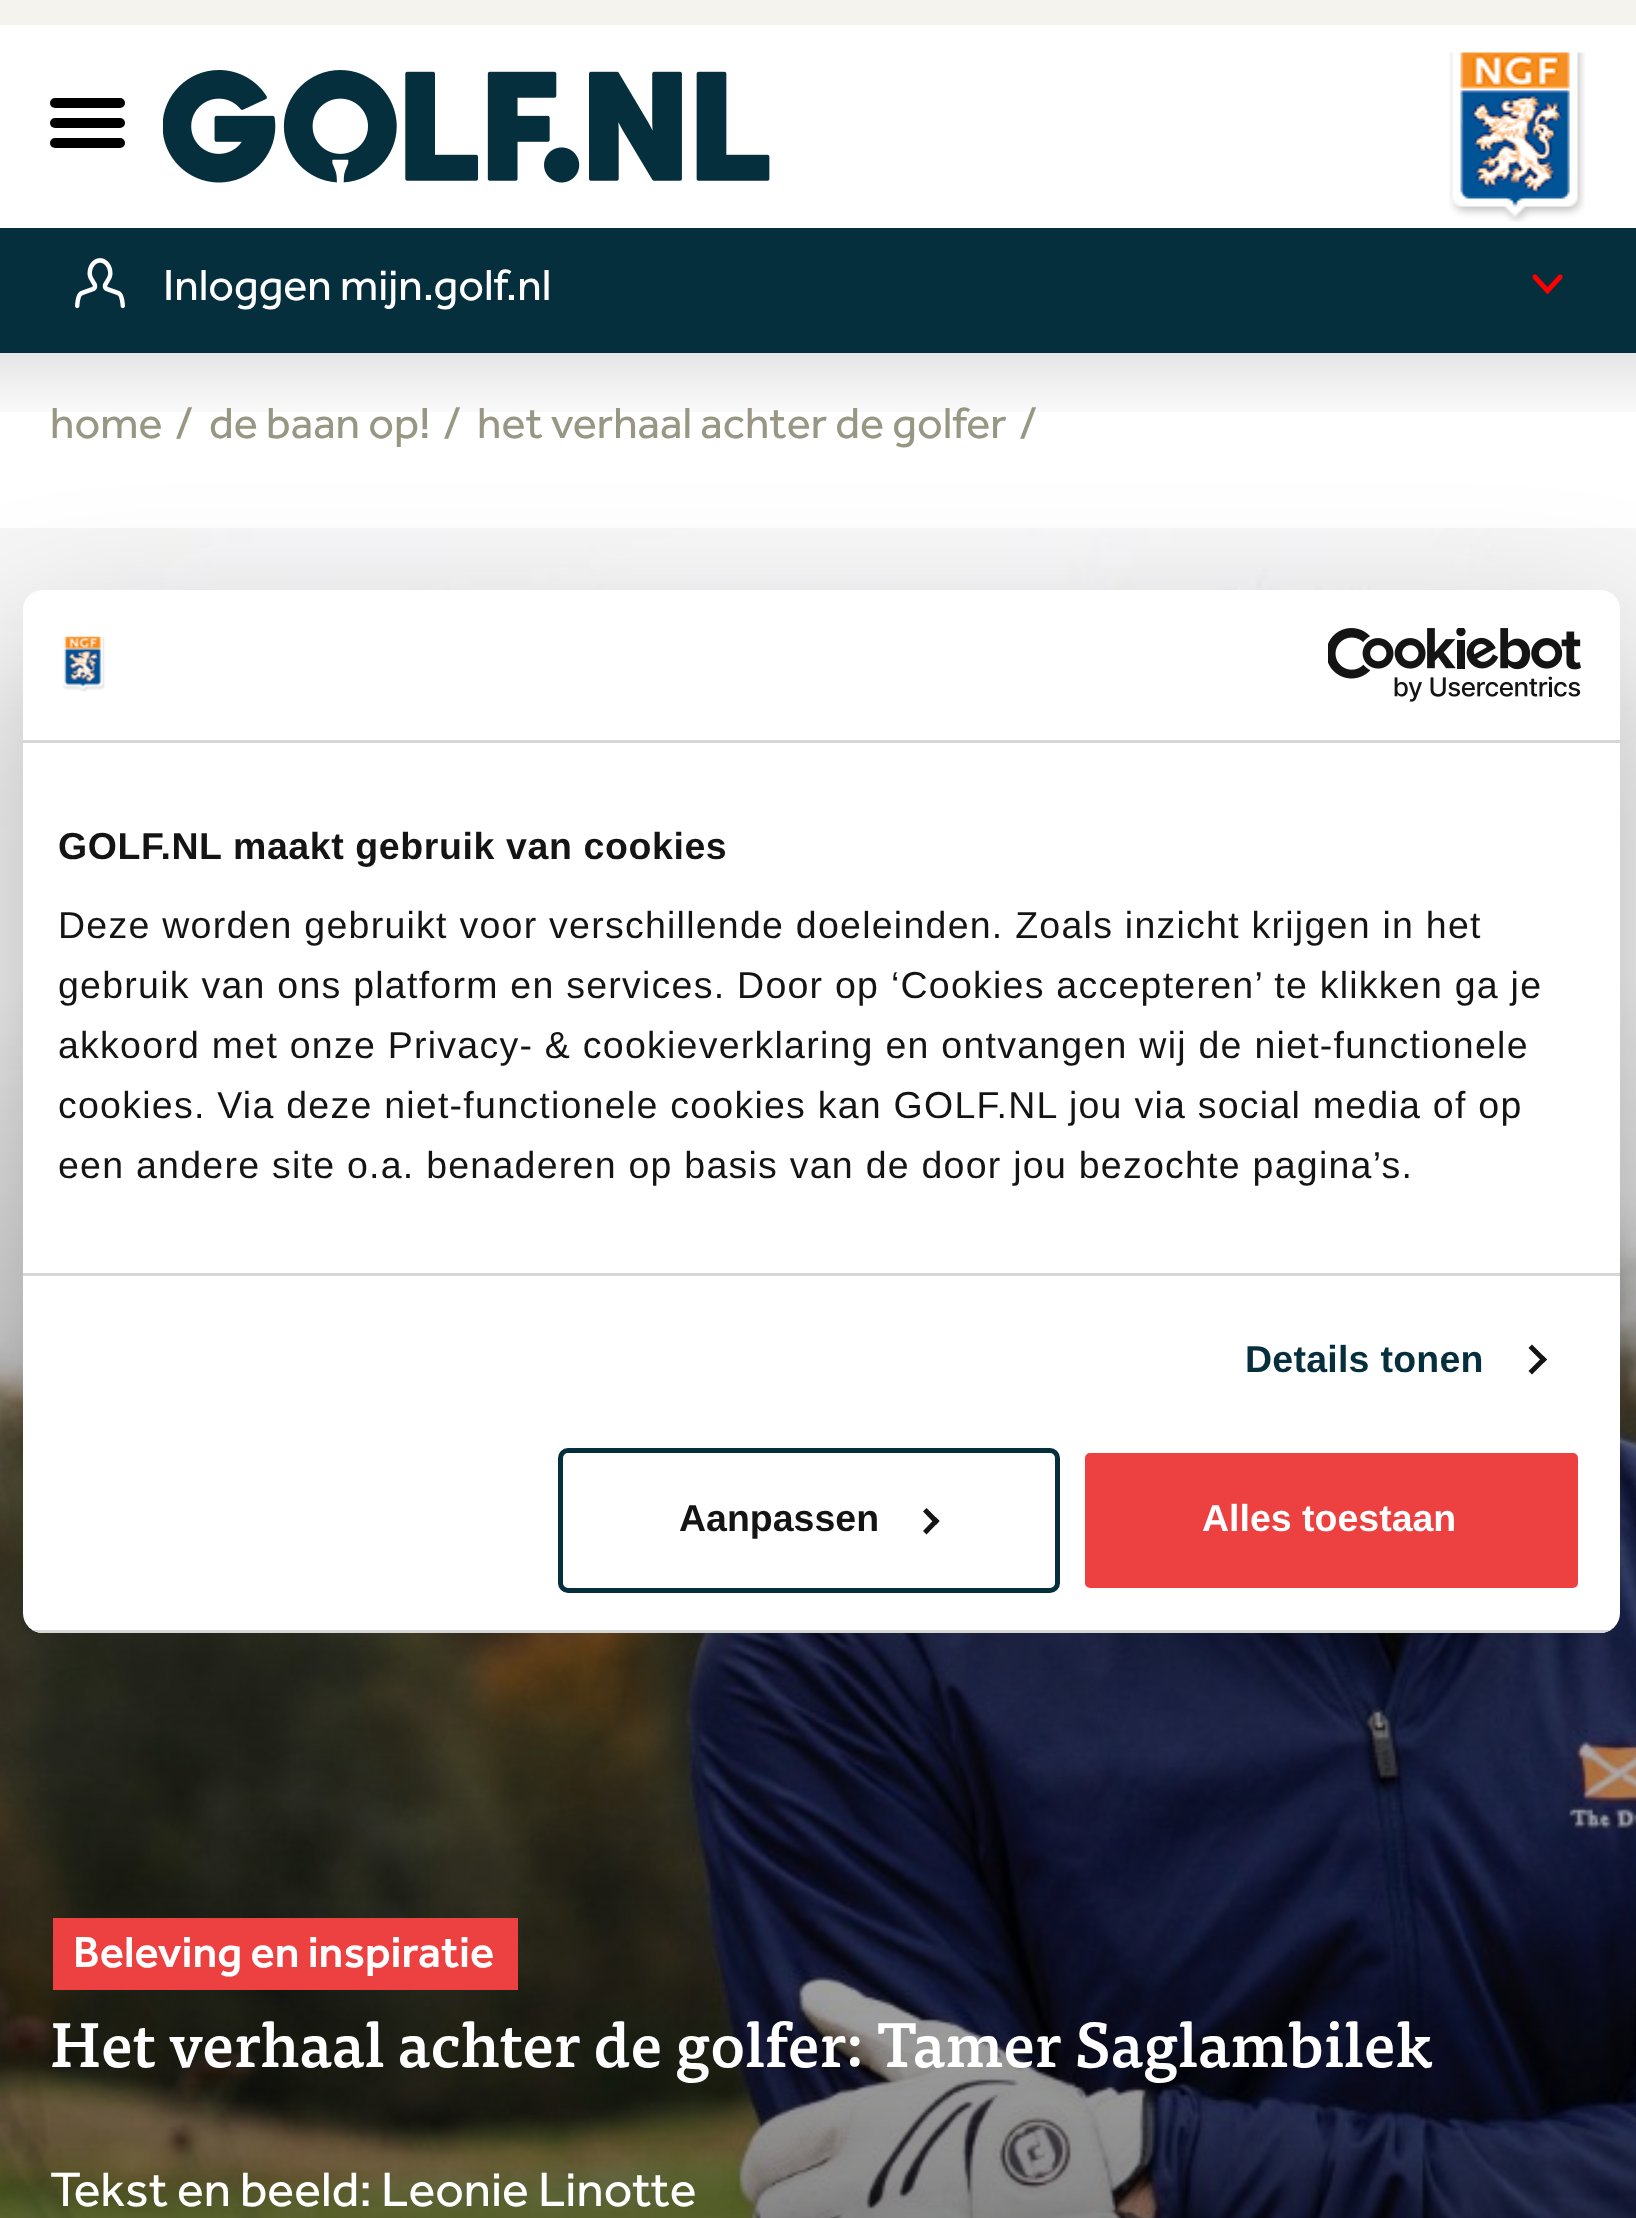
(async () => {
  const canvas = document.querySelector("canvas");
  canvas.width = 1636;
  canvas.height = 2218;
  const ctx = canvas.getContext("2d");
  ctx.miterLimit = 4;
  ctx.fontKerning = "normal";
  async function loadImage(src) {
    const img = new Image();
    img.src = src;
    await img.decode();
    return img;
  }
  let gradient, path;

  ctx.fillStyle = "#ffffff";
  ctx.fillRect(0, 0, 1636, 2218);
  ctx.fillStyle = "#f4f3ee";
  ctx.fillRect(0, 0, 1636, 25);
  ctx.fillStyle = "#000000";
  ctx.beginPath();
  ctx.roundRect(50, 118, 75, 10, 5);
  ctx.fill();
  ctx.beginPath();
  ctx.roundRect(50, 98, 75, 10, 5);
  ctx.fill();
  ctx.beginPath();
  ctx.roundRect(50, 138, 75, 10, 5);
  ctx.fill();
  ctx.drawImage(await loadImage("img/1.png"), 163, 70, 607, 113);
  ctx.drawImage(await loadImage("img/2.png"), 1449, 52, 136, 170);
  ctx.fillStyle = "#062f3d";
  ctx.fillRect(0, 228, 1636, 125);
  ctx.drawImage(await loadImage("img/3.png"), 75, 258, 50, 51);
  ctx.drawImage(await loadImage("img/4.png"), 1532, 274, 31, 21);
  gradient = ctx.createLinearGradient(819, 352, 819, 428);
  gradient.addColorStop(0, "rgba(0, 0, 0, 0.1)");
  gradient.addColorStop(1, "rgba(0, 0, 0, 0)");
  ctx.fillStyle = gradient;
  ctx.fillRect(0, 353, 1636, 59);
  ctx.drawImage(await loadImage("img/7.png"), 0, 528, 1636, 1690);
  ctx.fillStyle = "#ed4040";
  ctx.fillRect(53, 1918, 465, 72);
  ctx.save();
  path = new Path2D("M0 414H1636V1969H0ZM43 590H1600C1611 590 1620 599 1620 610V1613C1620 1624 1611 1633 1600 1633H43C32 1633 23 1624 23 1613V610C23 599 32 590 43 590Z");
  ctx.clip(path, "evenodd");
  ctx.fillStyle = "rgba(0, 0, 0, 0.3)";
  ctx.filter = "blur(85px)";
  ctx.beginPath();
  ctx.roundRect(23, 670, 1597, 1043, 20);
  ctx.fill();
  ctx.filter = "none";
  ctx.restore();
  ctx.fillStyle = "#ffffff";
  ctx.beginPath();
  ctx.roundRect(23, 590, 1597, 1043, 20);
  ctx.fill();
  ctx.fillStyle = "#d6d6d6";
  ctx.fillRect(23, 740, 1597, 3);
  ctx.drawImage(await loadImage("img/5.png"), 62, 636, 43, 56);
  ctx.drawImage(await loadImage("img/6.png"), 1328, 628, 253, 74);
  ctx.fillRect(23, 1273, 1597, 3);
  ctx.fillStyle = "#141414";
  path = new Path2D("M1532 1344.5L1547 1359.5L1543.5 1363L1528.5 1348Z");
  ctx.fill(path);
  path = new Path2D("M1543.5 1356L1547 1359.5L1532 1374.5L1528.5 1371Z");
  ctx.fill(path);
  ctx.save();
  ctx.beginPath();
  ctx.roundRect(23, 590, 1597, 1043, 20);
  ctx.clip();
  ctx.fillStyle = "#d6d6d6";
  ctx.fillRect(32, 1630, 1579, 3);
  ctx.restore();
  ctx.beginPath();
  ctx.roundRect(560.5, 1450.5, 497, 140, 7.5);
  ctx.strokeStyle = "#062f3d";
  ctx.lineWidth = 5;
  ctx.stroke();
  path = new Path2D("M926.5 1508L939.5 1521L936 1525L923 1511.5Z");
  ctx.fill(path);
  path = new Path2D("M936 1517.5L939.5 1521L926.5 1534.5L923 1531Z");
  ctx.fill(path);
  ctx.fillStyle = "#ed4040";
  ctx.beginPath();
  ctx.roundRect(1082.5, 1450.5, 498, 140, 7.5);
  ctx.fill();
  ctx.strokeStyle = "#ffffff";
  ctx.stroke();
  ctx.font = "45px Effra";
  ctx.fillStyle = "#ffffff";
  ctx.fillText("Inloggen mijn.golf.nl", 163, 300);
  ctx.fillStyle = "#989783";
  for (const [text, x, y] of [
    ["home", 50, 438],
    ["/", 175, 438],
    ["de baan op!", 209, 438],
    ["/", 443, 438],
    ["het verhaal achter de golfer", 477, 438],
    ["/", 1019, 438],
  ]) {
    ctx.fillText(text, x, y);
  }
  ctx.letterSpacing = "0.6px";
  ctx.font = "bold 37.5px Liberation Sans";
  ctx.fillStyle = "#141414";
  ctx.fillText("GOLF.NL maakt gebruik van cookies", 58, 859);
  ctx.letterSpacing = "1.25px";
  ctx.font = "37.5px Liberation Sans";
  for (const [text, x, y] of [
    ["Deze worden gebruikt voor verschillende doeleinden. Zoals inzicht krijgen in het", 58, 938],
    ["gebruik van ons platform en services. Door op ‘Cookies accepteren’ te klikken ga je", 58, 998],
    ["akkoord met onze Privacy- & cookieverklaring en ontvangen wij de niet-functionele", 58, 1058],
    ["cookies. Via deze niet-functionele cookies kan GOLF.NL jou via social media of op", 58, 1118],
    ["een andere site o.a. benaderen op basis van de door jou bezochte pagina’s.", 58, 1178],
  ]) {
    ctx.fillText(text, x, y);
  }
  ctx.letterSpacing = "0.25px";
  ctx.font = "bold 37.5px Liberation Sans";
  ctx.fillStyle = "#062f3d";
  ctx.fillText("Details tonen", 1245, 1372);
  ctx.letterSpacing = "0px";
  ctx.fillStyle = "#141414";
  ctx.fillText("Aanpassen", 679, 1531);
  ctx.fillStyle = "#ffffff";
  ctx.fillText("Alles toestaan", 1202, 1531);
  ctx.font = "500 45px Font";
  ctx.fillText("Beleving en inspiratie", 73, 1967);
  ctx.font = "500 62.5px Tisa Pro";
  ctx.fillText("Het verhaal achter de golfer: Tamer Saglambilek", 50, 2067);
  ctx.font = "50px Effra";
  ctx.fillText("Tekst en beeld: Leonie Linotte", 50, 2206);
})();
